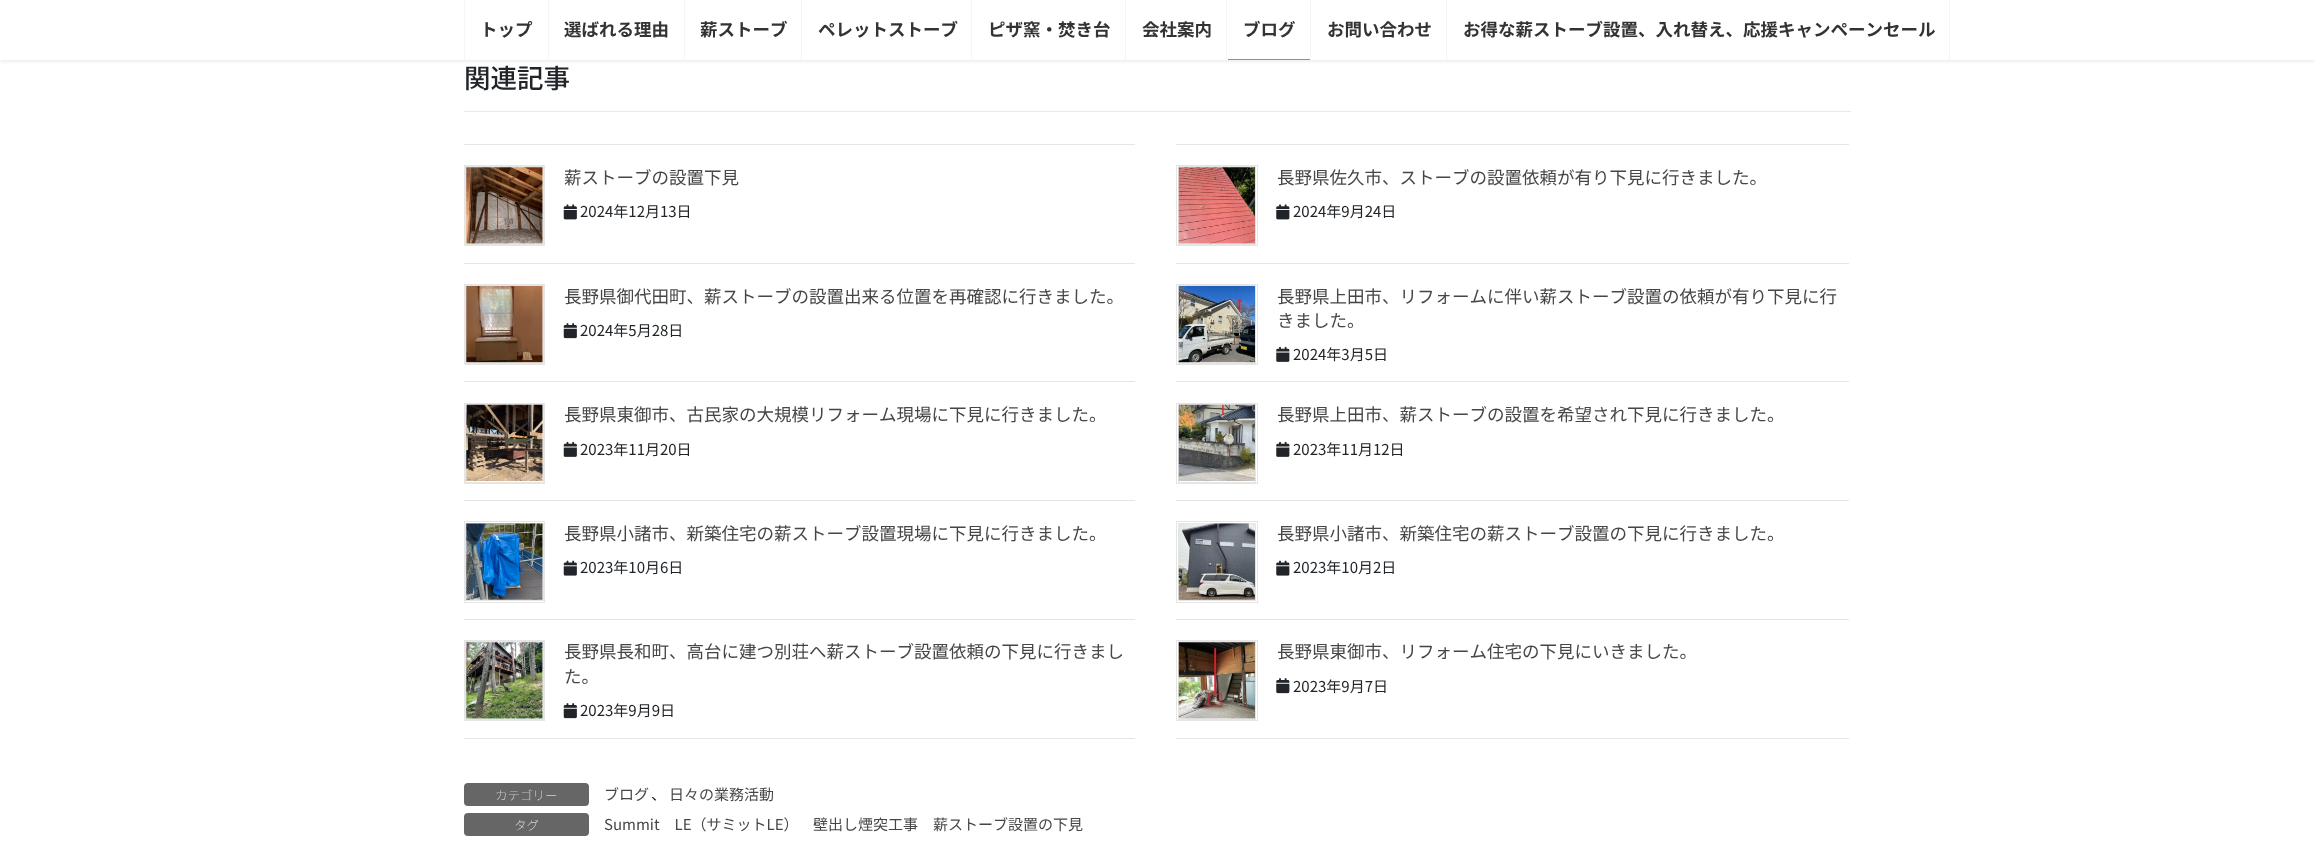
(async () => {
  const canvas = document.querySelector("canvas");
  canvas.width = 2314;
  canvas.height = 851;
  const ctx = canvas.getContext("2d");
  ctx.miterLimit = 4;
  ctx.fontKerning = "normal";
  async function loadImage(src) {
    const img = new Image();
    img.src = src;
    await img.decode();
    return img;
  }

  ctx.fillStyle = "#ffffff";
  ctx.fillRect(0, 0, 2314, 851);
  ctx.fillStyle = "rgba(0, 0, 0, 0.1)";
  ctx.filter = "blur(2px)";
  ctx.beginPath();
  ctx.rect(0, 1, 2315, 60);
  ctx.fill();
  ctx.filter = "none";
  for (const [x, y, w, h, color] of [
    [0, 0, 2314, 60, "#ffffff"],
    [464, 0, 1, 60, "#f5f5f5"],
    [548, 0, 1, 60, "#f5f5f5"],
    [684, 0, 1, 60, "#f5f5f5"],
    [801, 0, 1, 60, "#f5f5f5"],
    [971, 0, 1, 60, "#f5f5f5"],
    [1125, 0, 1, 60, "#f5f5f5"],
    [1226, 0, 1, 60, "#f5f5f5"],
    [1228, 59, 82, 1, "#dd8500"],
    [1310, 0, 1, 60, "#f5f5f5"],
    [1949, 0, 1, 60, "#f5f5f5"],
    [1446, 0, 1, 60, "#f5f5f5"],
    [464, 111, 1387, 1, "#e9e9e9"],
    [464, 144, 671, 1, "#e5e5e5"],
    [464, 263, 671, 1, "#e5e5e5"],
  ]) {
    ctx.fillStyle = color;
    ctx.fillRect(x, y, w, h);
  }
  ctx.strokeStyle = "#e5e5e5";
  ctx.strokeRect(464.5, 165.5, 80, 80);
  ctx.strokeRect(465.5, 166.5, 78, 78);
  ctx.drawImage(await loadImage("img/1.png"), 466, 167, 77, 77);
  ctx.drawImage(await loadImage("img/2.png"), 563, 204, 14, 16);
  ctx.fillRect(1176, 144, 673, 1);
  ctx.fillRect(1176, 263, 673, 1);
  ctx.strokeRect(1176.5, 165.5, 81, 80);
  ctx.strokeRect(1178.5, 166.5, 77, 78);
  ctx.drawImage(await loadImage("img/3.png"), 1178, 167, 77, 77);
  ctx.drawImage(await loadImage("img/4.png"), 1276, 204, 14, 16);
  ctx.fillRect(464, 381, 671, 1);
  ctx.strokeRect(464.5, 284.5, 80, 80);
  ctx.strokeRect(465.5, 285.5, 78, 78);
  ctx.drawImage(await loadImage("img/5.png"), 466, 286, 77, 77);
  ctx.drawImage(await loadImage("img/6.png"), 563, 323, 14, 16);
  ctx.fillRect(1176, 381, 673, 1);
  ctx.strokeRect(1176.5, 284.5, 81, 80);
  ctx.strokeRect(1178.5, 285.5, 77, 78);
  ctx.drawImage(await loadImage("img/7.png"), 1178, 286, 77, 77);
  ctx.drawImage(await loadImage("img/8.png"), 1276, 346, 14, 16);
  ctx.fillRect(464, 500, 671, 1);
  ctx.strokeRect(464.5, 403.5, 80, 80);
  ctx.strokeRect(465.5, 404.5, 78, 78);
  ctx.drawImage(await loadImage("img/9.png"), 466, 404, 77, 77);
  ctx.drawImage(await loadImage("img/10.png"), 563, 441, 14, 16);
  ctx.fillRect(1176, 500, 673, 1);
  ctx.strokeRect(1176.5, 403.5, 81, 80);
  ctx.strokeRect(1178.5, 404.5, 77, 78);
  ctx.drawImage(await loadImage("img/11.png"), 1178, 404, 77, 77);
  ctx.drawImage(await loadImage("img/8.png"), 1276, 441, 14, 16);
  ctx.fillRect(464, 619, 671, 1);
  ctx.strokeRect(464.5, 521.5, 80, 81);
  ctx.strokeRect(465.5, 523.5, 78, 77);
  ctx.drawImage(await loadImage("img/12.png"), 466, 523, 77, 77);
  ctx.drawImage(await loadImage("img/13.png"), 563, 560, 14, 16);
  ctx.fillRect(1176, 619, 673, 1);
  ctx.strokeRect(1176.5, 521.5, 81, 81);
  ctx.strokeRect(1178.5, 523.5, 77, 77);
  ctx.drawImage(await loadImage("img/14.png"), 1178, 523, 77, 77);
  ctx.drawImage(await loadImage("img/15.png"), 1276, 560, 14, 16);
  ctx.fillRect(464, 738, 671, 1);
  ctx.strokeRect(464.5, 640.5, 80, 80);
  ctx.strokeRect(465.5, 641.5, 78, 78);
  ctx.drawImage(await loadImage("img/16.png"), 466, 642, 77, 77);
  ctx.drawImage(await loadImage("img/6.png"), 563, 703, 14, 16);
  ctx.fillRect(1176, 738, 673, 1);
  ctx.strokeRect(1176.5, 640.5, 81, 80);
  ctx.strokeRect(1178.5, 641.5, 77, 78);
  ctx.drawImage(await loadImage("img/17.png"), 1178, 642, 77, 77);
  ctx.drawImage(await loadImage("img/18.png"), 1276, 678, 14, 16);
  ctx.fillStyle = "#666666";
  ctx.beginPath();
  ctx.roundRect(464, 783, 125, 23, 4);
  ctx.fill();
  ctx.beginPath();
  ctx.roundRect(464, 813, 125, 23, 4);
  ctx.fill();
  ctx.font = "bold 17.5px Noto Sans JP";
  ctx.fillStyle = "#333333";
  for (const [text, x, y] of [
    ["トップ", 480, 36],
    ["選ばれる理由", 564, 36],
    ["薪ストーブ", 700, 36],
    ["ペレットストーブ", 818, 36],
    ["ピザ窯・焚き台", 988, 36],
    ["会社案内", 1142, 36],
    ["ブログ", 1243, 36],
    ["お問い合わせ", 1327, 36],
    ["お得な薪ストーブ設置、入れ替え、応援キャンペーンセール", 1463, 36],
  ]) {
    ctx.fillText(text, x, y);
  }
  ctx.font = "500 26.5px Noto Sans JP";
  ctx.fillStyle = "#212529";
  ctx.fillText("関連記事", 464, 88);
  ctx.font = "17.5px Noto Sans JP";
  ctx.fillStyle = "#464646";
  ctx.fillText("薪ストーブの設置下見", 564, 184);
  ctx.font = "15px Noto Sans JP";
  ctx.fillStyle = "#212529";
  ctx.fillText("2024年12月13日", 580, 217);
  ctx.font = "17.5px Noto Sans JP";
  ctx.fillStyle = "#464646";
  ctx.fillText("長野県佐久市、ストーブの設置依頼が有り下見に行きました。", 1277, 184);
  ctx.font = "15px Noto Sans JP";
  ctx.fillStyle = "#212529";
  ctx.fillText("2024年9月24日", 1293, 217);
  ctx.font = "17.5px Noto Sans JP";
  ctx.fillStyle = "#464646";
  ctx.fillText("長野県御代田町、薪ストーブの設置出来る位置を再確認に行きました。", 564, 303);
  ctx.font = "15px Noto Sans JP";
  ctx.fillStyle = "#212529";
  ctx.fillText("2024年5月28日", 580, 336);
  ctx.font = "17.5px Noto Sans JP";
  ctx.fillStyle = "#464646";
  ctx.fillText("長野県上田市、リフォームに伴い薪ストーブ設置の依頼が有り下見に行", 1277, 303);
  ctx.fillText("きました。", 1277, 327);
  ctx.font = "15px Noto Sans JP";
  ctx.fillStyle = "#212529";
  ctx.fillText("2024年3月5日", 1293, 360);
  ctx.font = "17.5px Noto Sans JP";
  ctx.fillStyle = "#464646";
  ctx.fillText("長野県東御市、古民家の大規模リフォーム現場に下見に行きました。", 564, 421);
  ctx.font = "15px Noto Sans JP";
  ctx.fillStyle = "#212529";
  ctx.fillText("2023年11月20日", 580, 455);
  ctx.font = "17.5px Noto Sans JP";
  ctx.fillStyle = "#464646";
  ctx.fillText("長野県上田市、薪ストーブの設置を希望され下見に行きました。", 1277, 421);
  ctx.font = "15px Noto Sans JP";
  ctx.fillStyle = "#212529";
  ctx.fillText("2023年11月12日", 1293, 455);
  ctx.font = "17.5px Noto Sans JP";
  ctx.fillStyle = "#464646";
  ctx.fillText("長野県小諸市、新築住宅の薪ストーブ設置現場に下見に行きました。", 564, 540);
  ctx.font = "15px Noto Sans JP";
  ctx.fillStyle = "#212529";
  ctx.fillText("2023年10月6日", 580, 573);
  ctx.font = "17.5px Noto Sans JP";
  ctx.fillStyle = "#464646";
  ctx.fillText("長野県小諸市、新築住宅の薪ストーブ設置の下見に行きました。", 1277, 540);
  ctx.font = "15px Noto Sans JP";
  ctx.fillStyle = "#212529";
  ctx.fillText("2023年10月2日", 1293, 573);
  ctx.font = "17.5px Noto Sans JP";
  ctx.fillStyle = "#464646";
  ctx.fillText("長野県長和町、高台に建つ別荘へ薪ストーブ設置依頼の下見に行きまし", 564, 658);
  ctx.fillText("た。", 564, 683);
  ctx.font = "15px Noto Sans JP";
  ctx.fillStyle = "#212529";
  ctx.fillText("2023年9月9日", 580, 716);
  ctx.font = "17.5px Noto Sans JP";
  ctx.fillStyle = "#464646";
  ctx.fillText("長野県東御市、リフォーム住宅の下見にいきました。", 1277, 658);
  ctx.font = "15px Noto Sans JP";
  ctx.fillStyle = "#212529";
  ctx.fillText("2023年9月7日", 1293, 692);
  ctx.font = "100 12.5px Noto Sans JP";
  ctx.fillStyle = "#ffffff";
  ctx.fillText("カテゴリー", 495, 800);
  ctx.font = "15px Noto Sans JP";
  ctx.fillStyle = "#464646";
  ctx.fillText("ブログ", 604, 800);
  ctx.fillStyle = "#212529";
  ctx.fillText("、", 651, 800);
  ctx.fillStyle = "#464646";
  ctx.fillText("日々の業務活動", 669, 800);
  ctx.font = "100 12.5px Noto Sans JP";
  ctx.fillStyle = "#ffffff";
  ctx.fillText("タグ", 514, 830);
  ctx.font = "15px Noto Sans JP";
  ctx.fillStyle = "#464646";
  for (const [text, x, y] of [
    ["Summit　LE（サミットLE）", 604, 830],
    ["壁出し煙突工事", 813, 830],
    ["薪ストーブ設置の下見", 933, 830],
  ]) {
    ctx.fillText(text, x, y);
  }
})();
